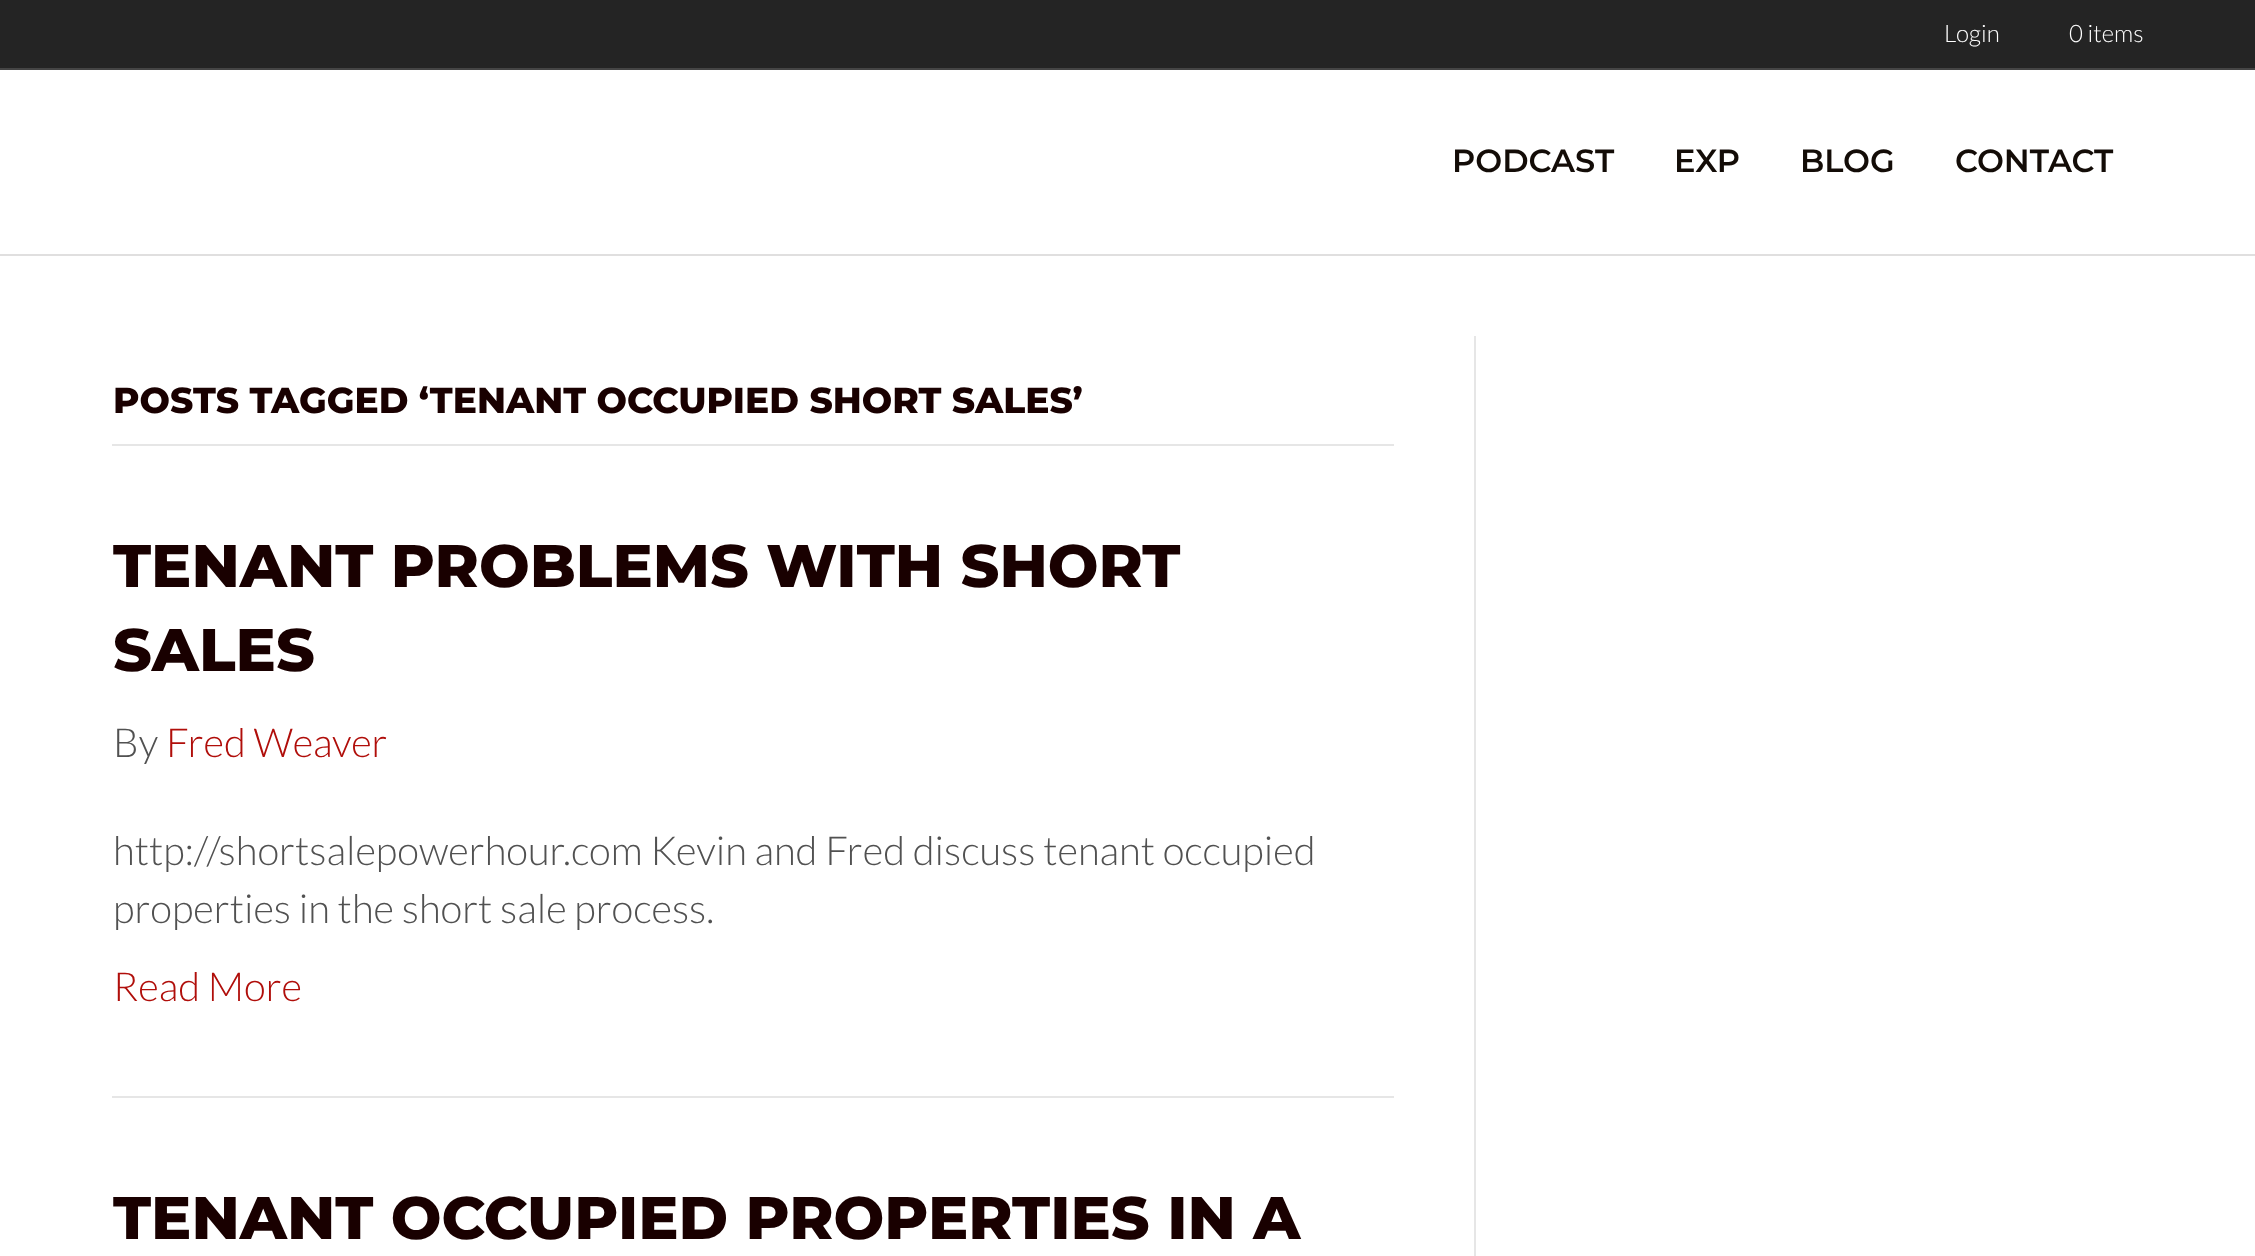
(async () => {
  const canvas = document.querySelector("canvas");
  canvas.width = 2255;
  canvas.height = 1256;
  const ctx = canvas.getContext("2d");
  ctx.miterLimit = 4;
  ctx.fontKerning = "normal";

  ctx.fillStyle = "#242424";
  ctx.fillRect(0, 0, 2255, 1256);
  for (const [x, y, w, h, color] of [
    [0, 68, 2255, 2, "#454545"],
    [0, 70, 2255, 184, "#ffffff"],
    [0, 254, 2255, 2, "#e0dfdf"],
    [0, 256, 2255, 1000, "#ffffff"],
    [1474, 336, 2, 920, "#e6e6e6"],
    [112, 444, 1282, 2, "#e6e6e6"],
    [112, 1096, 1282, 2, "#e6e6e6"],
  ]) {
    ctx.fillStyle = color;
    ctx.fillRect(x, y, w, h);
  }
  ctx.font = "300 24px Lato";
  ctx.fillStyle = "#ffffff";
  ctx.fillText("Login", 1944, 42);
  ctx.fillText("0 items", 2069, 42);
  ctx.font = "600 32px Montserrat";
  ctx.fillStyle = "#130c07";
  for (const [text, x, y] of [
    ["PODCAST", 1452, 172],
    ["EXP", 1674, 172],
    ["BLOG", 1800, 172],
    ["CONTACT", 1955, 172],
  ]) {
    ctx.fillText(text, x, y);
  }
  ctx.font = "800 36px Montserrat";
  ctx.fillStyle = "#190000";
  ctx.fillText("POSTS TAGGED ‘TENANT OCCUPIED SHORT SALES’", 113, 413);
  ctx.font = "800 60px Montserrat";
  ctx.fillText("TENANT PROBLEMS WITH SHORT", 113, 587);
  ctx.fillText("SALES", 113, 671);
  ctx.font = "300 40px Lato";
  ctx.fillStyle = "#515151";
  ctx.fillText("By", 113, 757);
  ctx.fillStyle = "#b00e0a";
  ctx.fillText("Fred Weaver", 166, 757);
  ctx.fillStyle = "#515151";
  ctx.fillText("http://shortsalepowerhour.com Kevin and Fred discuss tenant occupied", 113, 865);
  ctx.fillText("properties in the short sale process.", 113, 923);
  ctx.fillStyle = "#b00e0a";
  ctx.fillText("Read More", 113, 1001);
  ctx.font = "800 60px Montserrat";
  ctx.fillStyle = "#190000";
  ctx.fillText("TENANT OCCUPIED PROPERTIES IN A", 113, 1239);
})();
